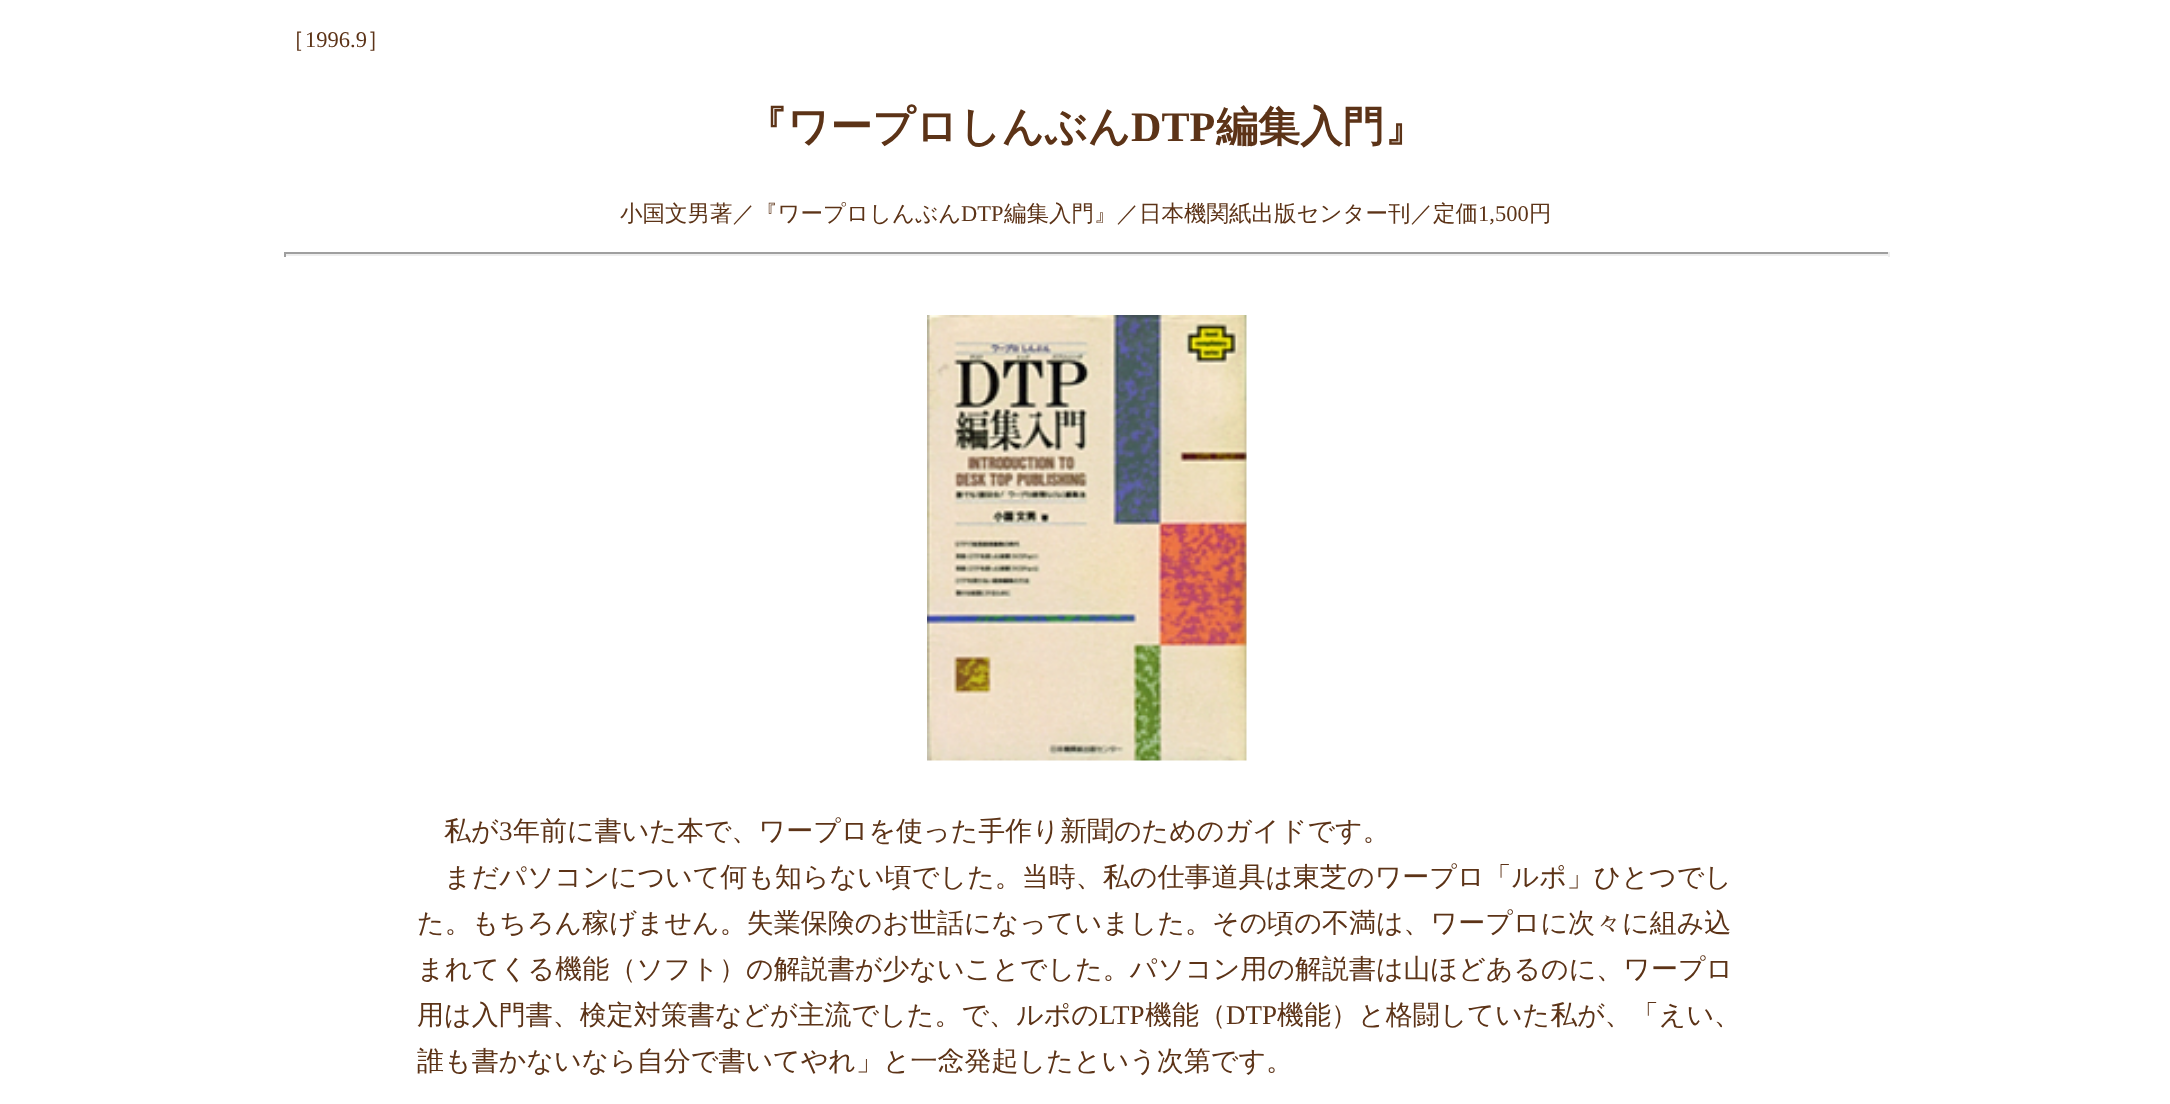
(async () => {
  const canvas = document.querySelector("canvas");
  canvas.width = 2170;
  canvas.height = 1104;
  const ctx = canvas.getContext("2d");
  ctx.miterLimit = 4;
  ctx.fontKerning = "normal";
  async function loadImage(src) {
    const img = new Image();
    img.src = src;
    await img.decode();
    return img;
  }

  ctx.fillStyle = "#ffffff";
  ctx.fillRect(0, 0, 2170, 1104);
  for (const [x, y, w, h, color] of [
    [284, 252, 1606, 2, "#9f9f9f"],
    [1888, 252, 2, 5, "#eeeeee"],
    [284, 254, 1606, 2, "#eeeeee"],
    [284, 252, 2, 5, "#9f9f9f"],
  ]) {
    ctx.fillStyle = color;
    ctx.fillRect(x, y, w, h);
  }
  ctx.drawImage(await loadImage("img/1.png"), 927, 315, 320, 446);
  ctx.font = "500 22.5px WenQuanYi Zen Hei";
  ctx.fillStyle = "#5c3317";
  ctx.fillText("［", 282, 47);
  ctx.font = "22.5px Liberation Serif";
  ctx.fillText("1996.9", 305, 47);
  ctx.font = "500 22.5px WenQuanYi Zen Hei";
  ctx.fillText("］", 367, 47);
  ctx.font = "bold 42.1px WenQuanYi Zen Hei";
  ctx.fillText("『ワープロしんぶん", 745, 141);
  ctx.font = "bold 42.1px Liberation Serif";
  ctx.fillText("DTP", 1131, 141);
  ctx.font = "bold 42.1px WenQuanYi Zen Hei";
  ctx.fillText("編集入門』", 1216, 141);
  ctx.font = "500 22.5px WenQuanYi Zen Hei";
  ctx.fillText("小国文男著／『ワープロしんぶん", 620, 221);
  ctx.font = "22.5px Liberation Serif";
  ctx.fillText("DTP", 961, 221);
  ctx.font = "500 22.5px WenQuanYi Zen Hei";
  ctx.fillText("編集入門』／日本機関紙出版センター刊／定価", 1004, 221);
  ctx.font = "22.5px Liberation Serif";
  ctx.fillText("1,500", 1478, 221);
  ctx.font = "500 22.5px WenQuanYi Zen Hei";
  ctx.fillText("円", 1529, 221);
  ctx.font = "500 27px WenQuanYi Zen Hei";
  ctx.fillText("私が", 444, 840);
  ctx.font = "27px Liberation Serif";
  ctx.fillText("3", 499, 840);
  ctx.font = "500 27px WenQuanYi Zen Hei";
  for (const [text, x, y] of [
    ["年前に書いた本で、ワープロを使った手作り新聞のためのガイドです。", 513, 840],
    ["まだパソコンについて何も知らない頃でした。当時、私の仕事道具は東芝のワープロ「ルポ」ひとつでし", 444, 886],
    ["た。もちろん稼げません。失業保険のお世話になっていました。その頃の不満は、ワープロに次々に組み込", 417, 932],
    ["まれてくる機能（ソフト）の解説書が少ないことでした。パソコン用の解説書は山ほどあるのに、ワープロ", 417, 978],
    ["用は入門書、検定対策書などが主流でした。で、ルポの", 417, 1024],
  ]) {
    ctx.fillText(text, x, y);
  }
  ctx.font = "27px Liberation Serif";
  ctx.fillText("LTP", 1099, 1024);
  ctx.font = "500 27px WenQuanYi Zen Hei";
  ctx.fillText("機能（", 1145, 1024);
  ctx.font = "27px Liberation Serif";
  ctx.fillText("DTP", 1226, 1024);
  ctx.font = "500 27px WenQuanYi Zen Hei";
  ctx.fillText("機能）と格闘していた私が、「えい、", 1277, 1024);
  ctx.fillText("誰も書かないなら自分で書いてやれ」と一念発起したという次第です。", 417, 1070);
})();
